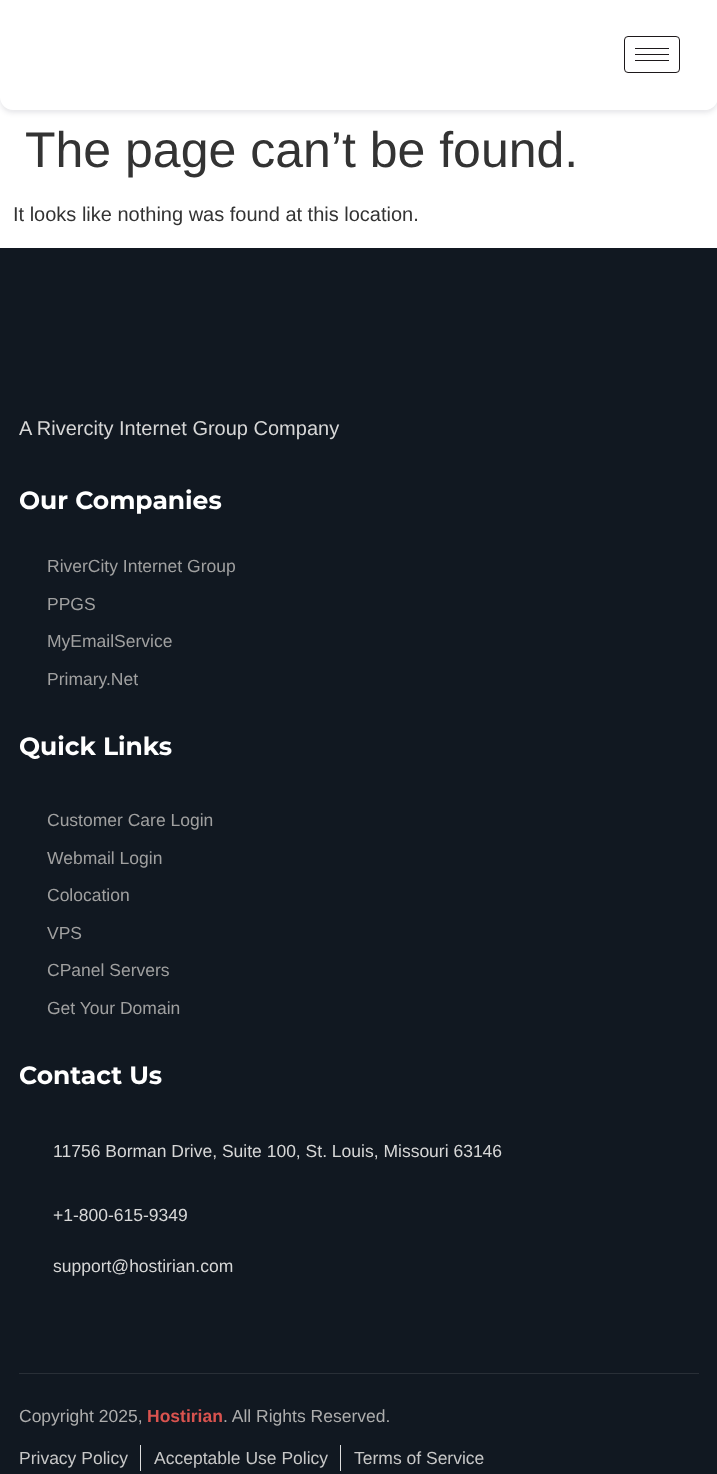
(async () => {
  const canvas = document.querySelector("canvas");
  canvas.width = 717;
  canvas.height = 1474;
  const ctx = canvas.getContext("2d");
  ctx.miterLimit = 4;
  ctx.fontKerning = "normal";
  let path;

  ctx.fillStyle = "#ffffff";
  ctx.fillRect(0, 0, 717, 1474);
  ctx.fillStyle = "rgba(17, 22, 51, 0.1)";
  ctx.filter = "blur(2.5px)";
  ctx.beginPath();
  ctx.roundRect(0, 3, 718, 110, 13);
  ctx.fill();
  ctx.filter = "none";
  ctx.fillStyle = "#ffffff";
  path = new Path2D("M0 0H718V97C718 104 712 110 705 110H13C6 110 0 104 0 97Z");
  ctx.fill(path);
  ctx.beginPath();
  ctx.roundRect(624.5, 36.5, 55, 36, 3.5);
  ctx.strokeStyle = "#1d181a";
  ctx.stroke();
  for (const [x, y, w, h, color] of [
    [635, 48, 34, 1, "#1d181a"],
    [635, 54, 34, 1, "#1d181a"],
    [635, 60, 34, 1, "#1d181a"],
    [0, 248, 717, 1226, "#111821"],
    [19, 1373, 680, 1, "#292f37"],
    [140, 1445, 1, 26, "#dddddd"],
    [340, 1445, 1, 26, "#dddddd"],
  ]) {
    ctx.fillStyle = color;
    ctx.fillRect(x, y, w, h);
  }
  ctx.font = "50px Liberation Sans";
  ctx.fillStyle = "#333333";
  ctx.fillText("The page can’t be found.", 25, 167);
  ctx.font = "20px Liberation Sans";
  ctx.fillText("It looks like nothing was found at this location.", 13, 221);
  ctx.fillStyle = "#d7d7d7";
  ctx.fillText("A Rivercity Internet Group Company", 19, 435);
  ctx.font = "bold 25px Montserrat";
  ctx.fillStyle = "#ffffff";
  ctx.fillText("Our Companies", 19, 509);
  ctx.font = "17.5px Liberation Sans";
  ctx.fillStyle = "#a0a0a0";
  for (const [text, x, y] of [
    ["RiverCity Internet Group", 47, 572],
    ["PPGS", 47, 610],
    ["MyEmailService", 47, 647],
    ["Primary.Net", 47, 685],
  ]) {
    ctx.fillText(text, x, y);
  }
  ctx.font = "bold 25px Montserrat";
  ctx.fillStyle = "#ffffff";
  ctx.fillText("Quick Links", 19, 755);
  ctx.font = "17.5px Liberation Sans";
  ctx.fillStyle = "#a0a0a0";
  for (const [text, x, y] of [
    ["Customer Care Login", 47, 826],
    ["Webmail Login", 47, 864],
    ["Colocation", 47, 901],
    ["VPS", 47, 939],
    ["CPanel Servers", 47, 976],
    ["Get Your Domain", 47, 1014],
  ]) {
    ctx.fillText(text, x, y);
  }
  ctx.font = "bold 25px Montserrat";
  ctx.fillStyle = "#ffffff";
  ctx.fillText("Contact Us", 19, 1084);
  ctx.font = "17.5px Liberation Sans";
  ctx.fillStyle = "#d7d7d7";
  for (const [text, x, y] of [
    ["11756 Borman Drive, Suite 100, St. Louis, Missouri 63146", 53, 1157],
    ["+1-800-615-9349", 53, 1221],
    ["support@hostirian.com", 53, 1272],
  ]) {
    ctx.fillText(text, x, y);
  }
  ctx.fillStyle = "#adadad";
  ctx.fillText("Copyright 2025,", 19, 1422);
  ctx.font = "bold 17.5px Liberation Sans";
  ctx.fillStyle = "#d9534f";
  ctx.fillText("Hostirian", 147, 1422);
  ctx.font = "17.5px Liberation Sans";
  ctx.fillStyle = "#adadad";
  ctx.fillText(". All Rights Reserved.", 223, 1422);
  ctx.fillStyle = "#c7c7c7";
  for (const [text, x, y] of [
    ["Privacy Policy", 19, 1464],
    ["Acceptable Use Policy", 154, 1464],
    ["Terms of Service", 354, 1464],
  ]) {
    ctx.fillText(text, x, y);
  }
})();
